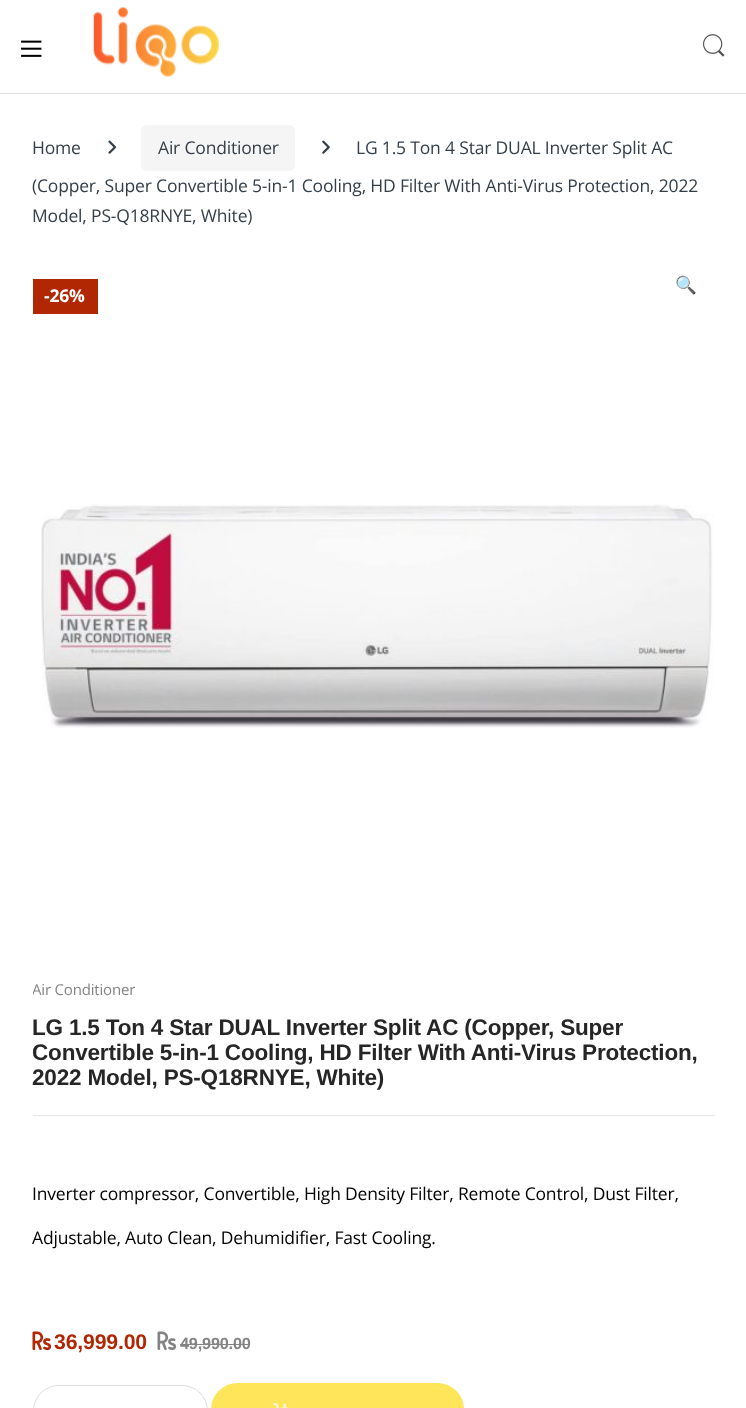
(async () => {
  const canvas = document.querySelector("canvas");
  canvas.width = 746;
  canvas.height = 1408;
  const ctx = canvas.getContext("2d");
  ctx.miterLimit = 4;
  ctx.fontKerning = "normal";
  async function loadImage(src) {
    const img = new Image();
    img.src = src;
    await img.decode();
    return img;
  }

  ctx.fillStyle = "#ffffff";
  ctx.fillRect(0, 0, 746, 1408);
  ctx.fillStyle = "#dddddd";
  ctx.fillRect(0, 93, 746, 1);
  ctx.drawImage(await loadImage("img/1.png"), 21, 40, 21, 17);
  ctx.drawImage(await loadImage("img/2.png"), 93, 7, 126, 70);
  ctx.drawImage(await loadImage("img/3.png"), 703, 34, 22, 23);
  ctx.drawImage(await loadImage("img/4.png"), 108, 140, 9, 14);
  ctx.fillStyle = "#f5f5f5";
  ctx.beginPath();
  ctx.roundRect(141, 125, 154, 46, 6);
  ctx.fill();
  ctx.drawImage(await loadImage("img/5.png"), 322, 140, 8, 14);
  ctx.fillStyle = "#b12704";
  ctx.fillRect(33, 279, 65, 35);
  ctx.drawImage(await loadImage("img/6.png"), 41, 504, 673, 224);
  ctx.fillStyle = "#e6e6e6";
  ctx.fillRect(33, 1115, 682, 1);
  ctx.drawImage(await loadImage("img/7.png"), 32, 1331, 20, 20);
  ctx.drawImage(await loadImage("img/8.png"), 157, 1331, 20, 20);
  ctx.fillStyle = "#848484";
  ctx.fillRect(180, 1344, 70, 1);
  ctx.beginPath();
  ctx.roundRect(33.5, 1385.5, 174, 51, 27);
  ctx.strokeStyle = "#dddddd";
  ctx.stroke();
  ctx.fillStyle = "#fee559";
  ctx.beginPath();
  ctx.roundRect(211, 1383, 253, 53, 28);
  ctx.fill();
  ctx.drawImage(await loadImage("img/9.png"), 273, 1402, 16, 6);
  ctx.letterSpacing = "-0.18px";
  ctx.font = "17.5px Open Sans";
  ctx.fillStyle = "#333e48";
  for (const [text, x, y] of [
    ["Home", 32, 154],
    ["Air Conditioner", 158, 154],
    ["LG 1.5 Ton 4 Star DUAL Inverter Split AC", 356, 154],
    ["(Copper, Super Convertible 5-in-1 Cooling, HD Filter With Anti-Virus Protection, 2022", 32, 192],
    ["Model, PS-Q18RNYE, White)", 32, 222],
  ]) {
    ctx.fillText(text, x, y);
  }
  ctx.font = "bold 17.5px Open Sans";
  ctx.fillStyle = "#ffffff";
  ctx.fillText("-26%", 44, 302);
  ctx.font = "17.5px Noto Color Emoji";
  ctx.fillStyle = "#0275d8";
  ctx.fillText("🔍", 675, 291);
  ctx.save();
  ctx.beginPath();
  ctx.rect(33, 979, 682, 21);
  ctx.clip();
  ctx.font = "15px Open Sans";
  ctx.fillStyle = "#848484";
  ctx.fillText("Air Conditioner", 32, 995);
  ctx.restore();
  ctx.font = "bold 22.5px Liberation Sans";
  ctx.fillStyle = "#262626";
  for (const [text, x, y] of [
    ["LG 1.5 Ton 4 Star DUAL Inverter Split AC (Copper, Super", 32, 1035],
    ["Convertible 5-in-1 Cooling, HD Filter With Anti-Virus Protection,", 32, 1060],
    ["2022 Model, PS-Q18RNYE, White)", 32, 1085],
  ]) {
    ctx.fillText(text, x, y);
  }
  ctx.font = "17.5px Open Sans";
  ctx.fillStyle = "#000000";
  ctx.fillText("Inverter compressor, Convertible, High Density Filter, Remote Control, Dust Filter,", 32, 1200);
  ctx.fillText("Adjustable, Auto Clean, Dehumidifier, Fast Cooling.", 32, 1244);
  ctx.font = "bold 21.25px Liberation Sans";
  ctx.fillStyle = "#b12704";
  ctx.fillText("36,999.00", 54, 1349);
  ctx.font = "bold 16.25px Liberation Sans";
  ctx.fillStyle = "#848484";
  ctx.fillText("49,990.00", 180, 1349);
})();
